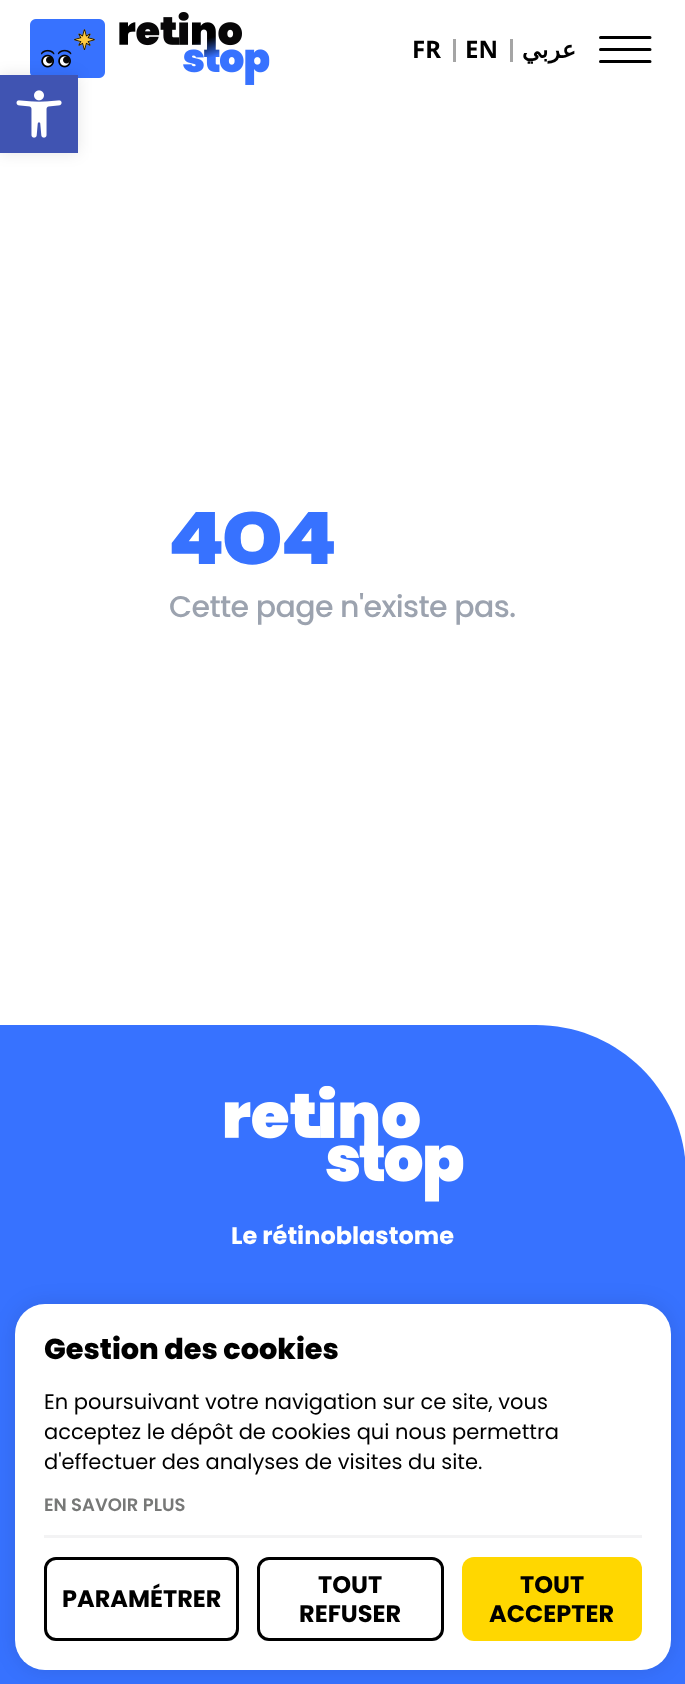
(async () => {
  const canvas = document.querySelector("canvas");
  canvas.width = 685;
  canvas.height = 1684;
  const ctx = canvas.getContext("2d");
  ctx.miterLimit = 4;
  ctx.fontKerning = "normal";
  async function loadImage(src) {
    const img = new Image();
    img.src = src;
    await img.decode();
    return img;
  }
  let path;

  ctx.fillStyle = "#ffffff";
  ctx.fillRect(0, 0, 685, 1684);
  ctx.drawImage(await loadImage("img/2.png"), 30, 12, 240, 73);
  ctx.fillStyle = "rgba(0, 0, 0, 0.1)";
  ctx.filter = "blur(7.5px)";
  ctx.beginPath();
  ctx.rect(0, 75, 78, 78);
  ctx.fill();
  ctx.filter = "none";
  ctx.fillStyle = "#4054b2";
  ctx.fillRect(0, 75, 78, 78);
  ctx.drawImage(await loadImage("img/1.png"), 16, 90, 46, 48);
  ctx.fillStyle = "#a5a5a5";
  ctx.fillRect(453, 39, 3, 23);
  ctx.fillRect(510, 39, 3, 23);
  path = new Path2D("M600.5 49.5H650M600.5 37.5H650M600.5 61.5H650");
  ctx.strokeStyle = "#000000";
  ctx.lineWidth = 3;
  ctx.lineCap = "round";
  ctx.lineJoin = "round";
  ctx.stroke(path);
  ctx.fillStyle = "#3772ff";
  path = new Path2D("M0 1025H536C619 1025 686 1092 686 1175V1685H0Z");
  ctx.fill(path);
  ctx.drawImage(await loadImage("img/3.png"), 224, 1085, 240, 117);
  ctx.fillStyle = "rgba(0, 0, 0, 0.1)";
  ctx.filter = "blur(10.5px)";
  ctx.beginPath();
  ctx.roundRect(15, 1304, 656, 366, 30);
  ctx.fill();
  ctx.filter = "none";
  ctx.fillStyle = "#ffffff";
  ctx.beginPath();
  ctx.roundRect(15, 1304, 656, 366, 30);
  ctx.fill();
  ctx.fillStyle = "#f3f3f4";
  ctx.fillRect(44, 1535, 598, 3);
  ctx.beginPath();
  ctx.roundRect(45.5, 1558.5, 192, 81, 10.5);
  ctx.lineJoin = "miter";
  ctx.stroke();
  ctx.beginPath();
  ctx.roundRect(258.5, 1558.5, 184, 81, 10.5);
  ctx.stroke();
  ctx.fillStyle = "#ffd700";
  ctx.beginPath();
  ctx.roundRect(462, 1557, 180, 84, 12);
  ctx.fill();
  ctx.font = "bold 24px Noto Sans";
  ctx.fillStyle = "#000000";
  ctx.fillText("FR", 412, 58);
  ctx.fillText("EN", 465, 58);
  ctx.direction = "rtl";
  ctx.font = "bold 24px DejaVu Sans";
  ctx.fillText("عربي", 576, 58);
  ctx.direction = "ltr";
  ctx.font = "900 72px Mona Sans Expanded";
  ctx.fillStyle = "#3772ff";
  ctx.fillText("404", 169, 564);
  ctx.letterSpacing = "-0.6px";
  ctx.font = "500 30px Poppins";
  ctx.fillStyle = "#9ca3af";
  ctx.fillText("Cette page n'existe pas.", 169, 617);
  ctx.letterSpacing = "0px";
  ctx.font = "bold 24px Poppins";
  ctx.fillStyle = "#ffffff";
  ctx.fillText("Le rétinoblastome", 231, 1244);
  ctx.font = "800 28.75px Poppins";
  ctx.fillStyle = "#000000";
  ctx.fillText("Gestion des cookies", 44, 1359);
  ctx.font = "21px Poppins";
  for (const [text, x, y] of [
    ["En poursuivant votre navigation sur ce site, vous", 44, 1409],
    ["acceptez le dépôt de cookies qui nous permettra", 44, 1439],
    ["d'effectuer des analyses de visites du site.", 44, 1469],
  ]) {
    ctx.fillText(text, x, y);
  }
  ctx.font = "600 18px Poppins";
  ctx.fillStyle = "#777877";
  ctx.fillText("EN SAVOIR PLUS", 44, 1511);
  ctx.font = "bold 24px Poppins";
  ctx.fillStyle = "#000000";
  for (const [text, x, y] of [
    ["PARAMÉTRER", 62, 1607],
    ["TOUT", 318, 1593],
    ["REFUSER", 299, 1622],
    ["TOUT", 520, 1593],
    ["ACCEPTER", 489, 1622],
  ]) {
    ctx.fillText(text, x, y);
  }
})();
